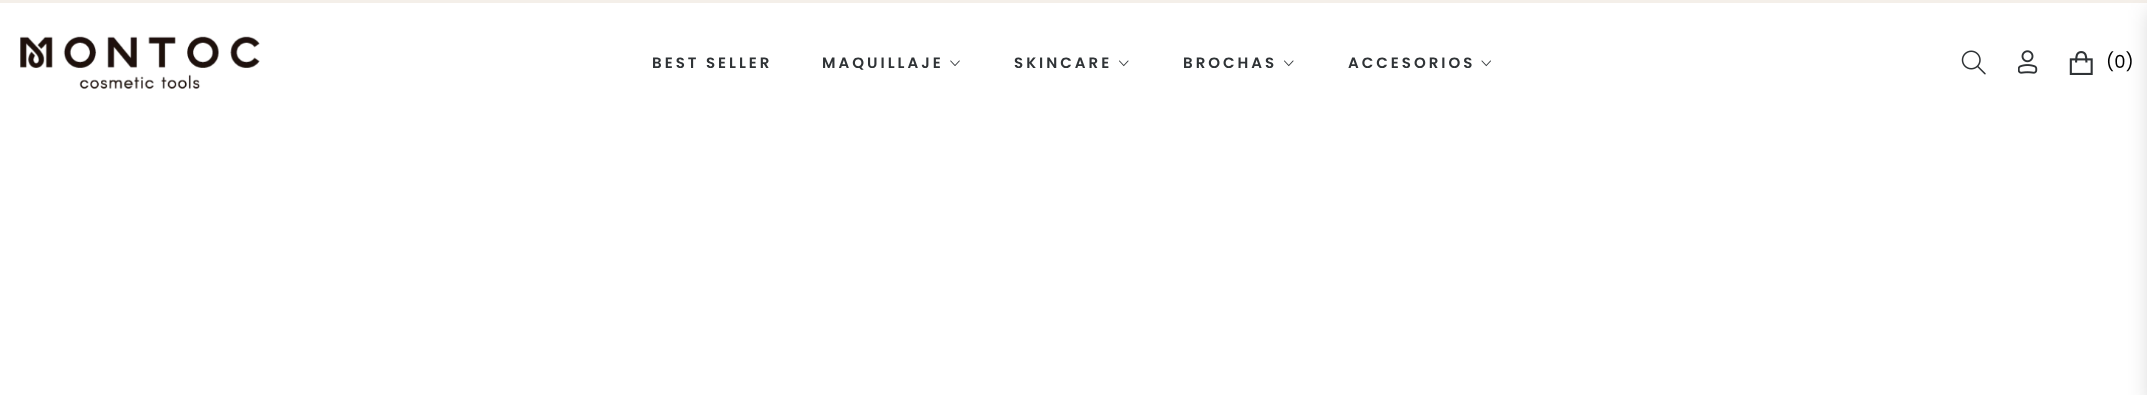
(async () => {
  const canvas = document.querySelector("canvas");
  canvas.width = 2147;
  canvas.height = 395;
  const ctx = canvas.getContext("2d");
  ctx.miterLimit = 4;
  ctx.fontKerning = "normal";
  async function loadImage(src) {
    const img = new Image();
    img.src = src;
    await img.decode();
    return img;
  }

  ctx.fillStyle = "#f4efe9";
  ctx.fillRect(0, 0, 2147, 395);
  ctx.fillStyle = "#ffffff";
  ctx.fillRect(0, 3, 2147, 392);
  ctx.drawImage(await loadImage("img/1.png"), 20, 36, 240, 53);
  ctx.drawImage(await loadImage("img/2.png"), 950, 60, 10, 6);
  ctx.drawImage(await loadImage("img/3.png"), 1119, 60, 10, 7);
  ctx.drawImage(await loadImage("img/3.png"), 1284, 60, 10, 7);
  ctx.drawImage(await loadImage("img/4.png"), 1481, 60, 10, 7);
  ctx.drawImage(await loadImage("img/5.png"), 1961, 50, 25, 25);
  ctx.drawImage(await loadImage("img/6.png"), 2018, 50, 20, 24);
  ctx.fillStyle = "rgba(0, 0, 0, 0.15)";
  ctx.filter = "blur(10px)";
  ctx.beginPath();
  ctx.rect(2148, 10, 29, 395);
  ctx.fill();
  ctx.filter = "none";
  ctx.drawImage(await loadImage("img/7.png"), 2069, 51, 24, 24);
  ctx.letterSpacing = "3px";
  ctx.font = "600 15px Poppins";
  ctx.fillStyle = "#2f3336";
  for (const [text, x, y] of [
    ["BEST SELLER", 652, 68],
    ["MAQUILLAJE", 822, 68],
    ["SKINCARE", 1014, 68],
    ["BROCHAS", 1183, 68],
    ["ACCESORIOS", 1348, 68],
  ]) {
    ctx.fillText(text, x, y);
  }
  ctx.letterSpacing = "0px";
  ctx.font = "18px Poppins";
  ctx.fillStyle = "#000000";
  ctx.fillText("(0)", 2106, 68);
})();
